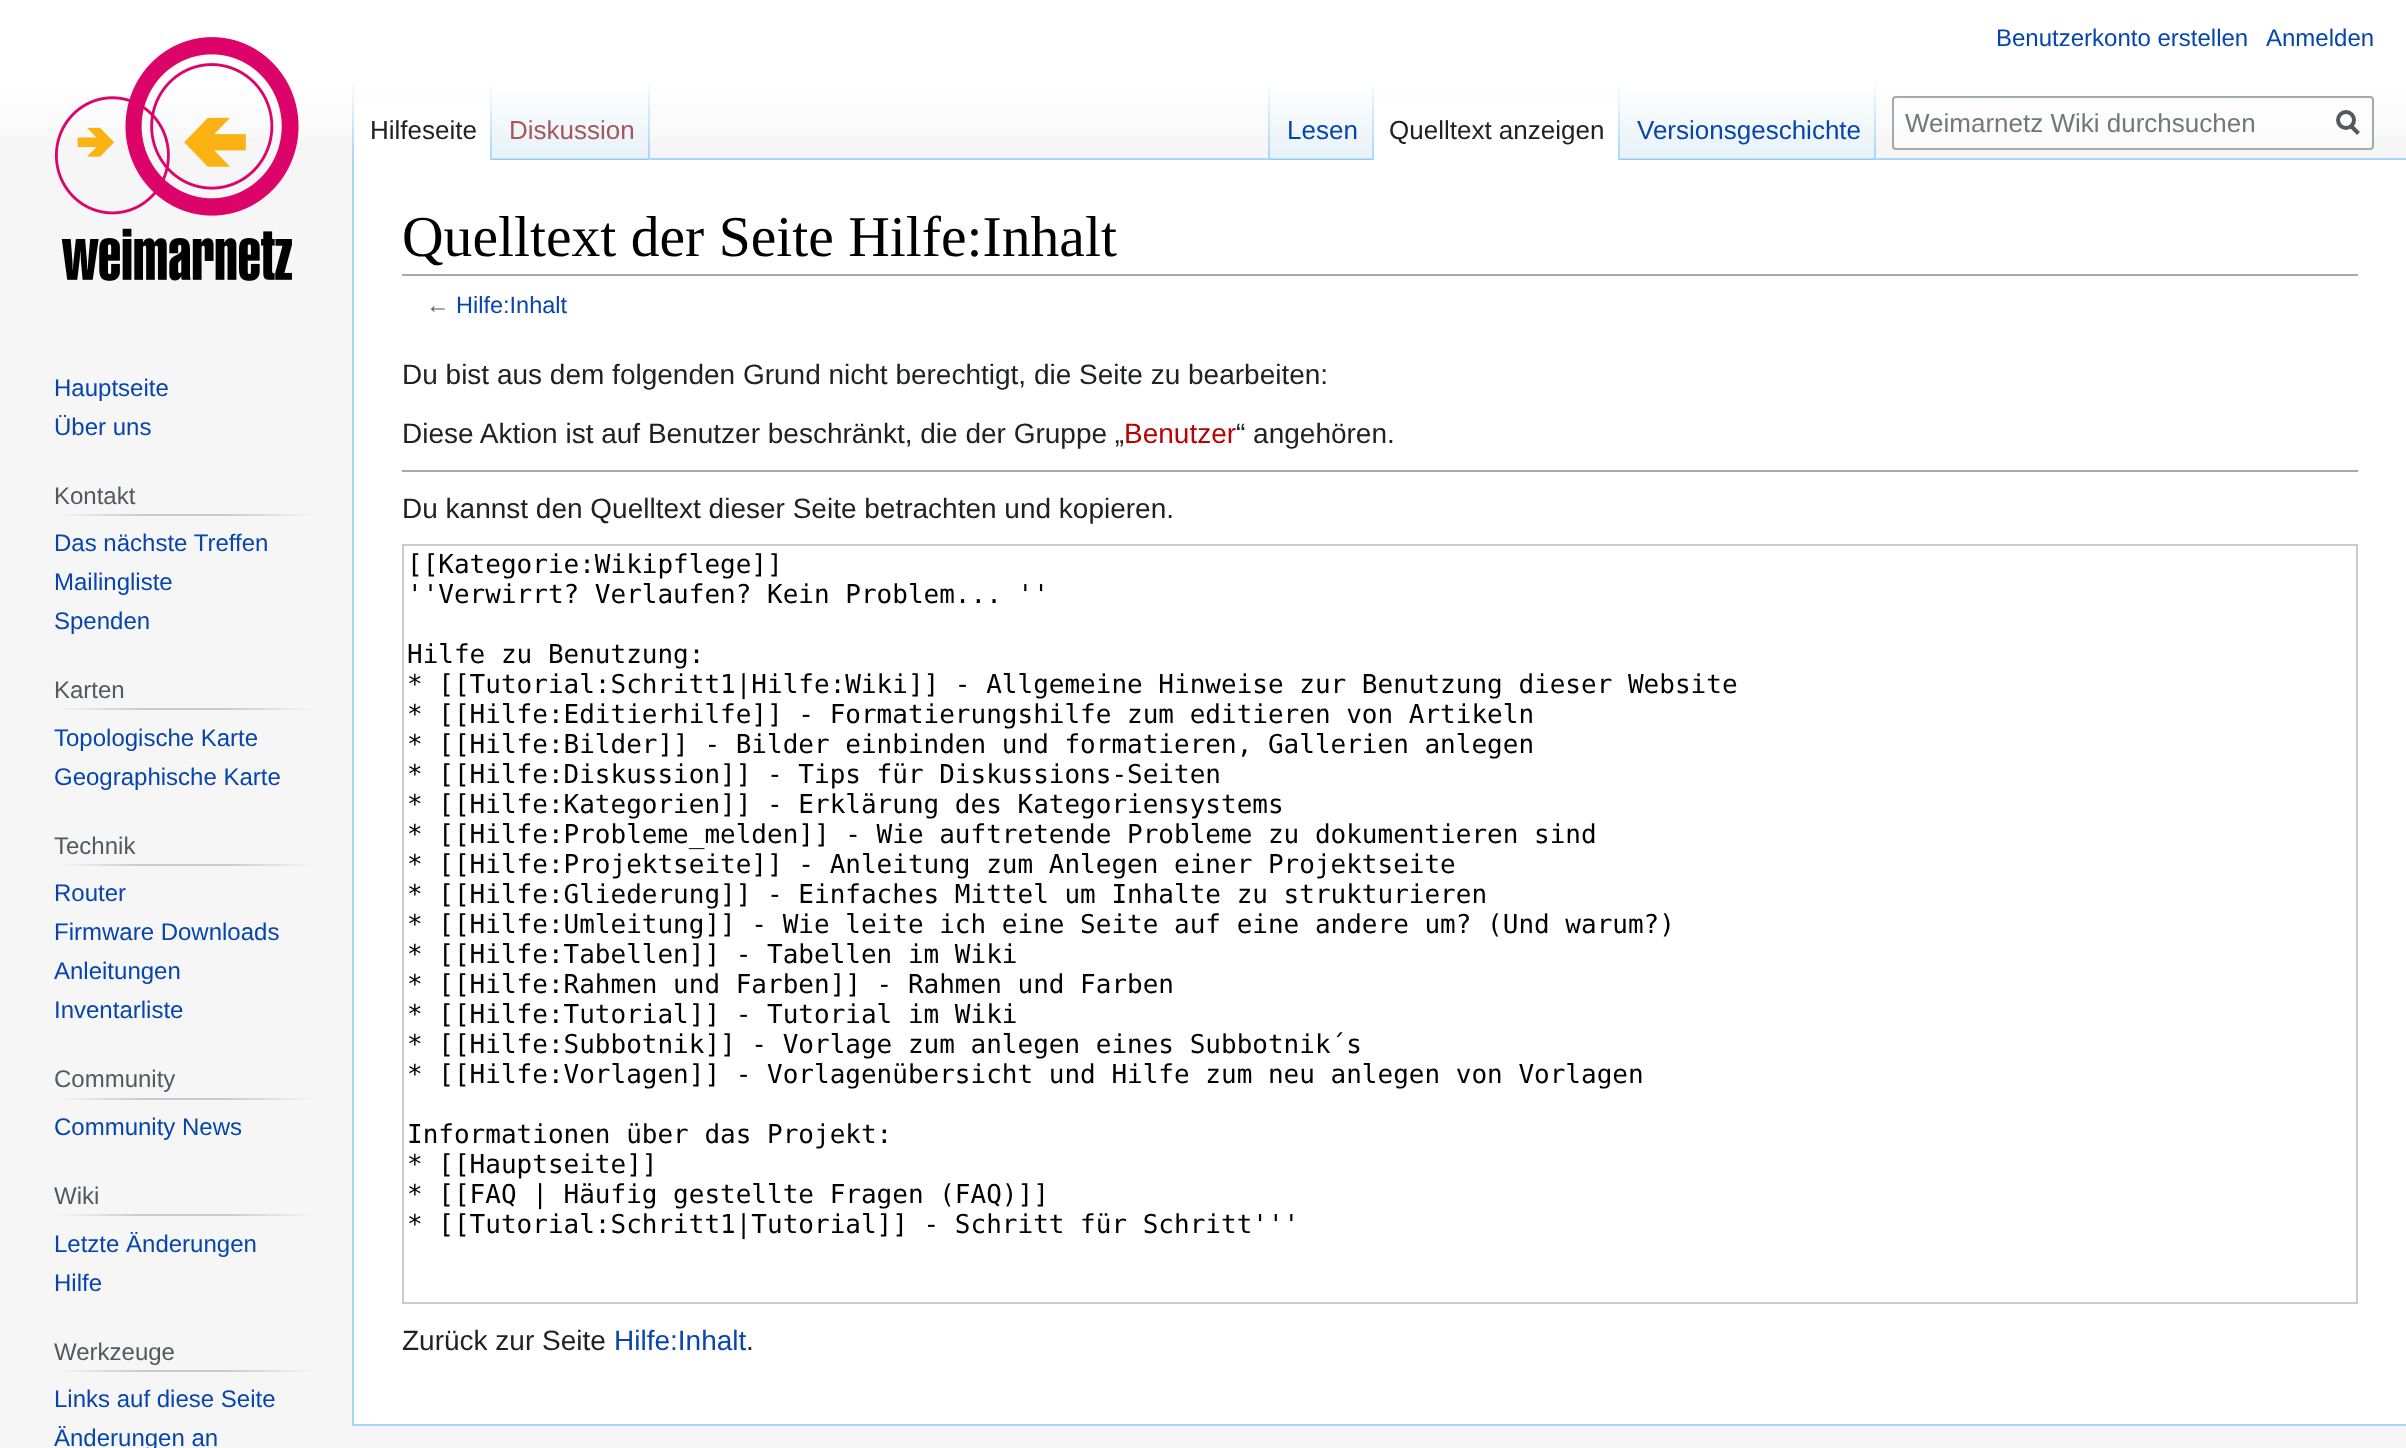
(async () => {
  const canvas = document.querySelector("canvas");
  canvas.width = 2406;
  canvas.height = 1448;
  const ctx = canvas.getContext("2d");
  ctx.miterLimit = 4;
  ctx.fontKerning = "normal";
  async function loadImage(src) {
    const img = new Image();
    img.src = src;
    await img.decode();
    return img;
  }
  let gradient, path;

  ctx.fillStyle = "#f6f6f6";
  ctx.fillRect(0, 0, 2406, 1448);
  gradient = ctx.createLinearGradient(1203, 0, 1203, 160);
  gradient.addColorStop(0.5, "#ffffff");
  gradient.addColorStop(1, "#f6f6f6");
  ctx.fillStyle = gradient;
  ctx.fillRect(0, 0, 2406, 138);
  ctx.fillStyle = "#a7d7f9";
  ctx.fillRect(352, 1424, 2054, 2);
  ctx.fillRect(352, 158, 2, 1268);
  gradient = ctx.createLinearGradient(353, 80, 353, 160);
  gradient.addColorStop(0, "rgba(167, 215, 249, 0)");
  gradient.addColorStop(1, "#a7d7f9");
  ctx.fillStyle = gradient;
  ctx.fillRect(352, 80, 2, 80);
  ctx.fillStyle = "#ffffff";
  ctx.fillRect(354, 102, 136, 58);
  gradient = ctx.createLinearGradient(491, 80, 491, 160);
  gradient.addColorStop(0, "#ffffff");
  gradient.addColorStop(1, "#a7d7f9");
  ctx.fillStyle = gradient;
  ctx.fillRect(490, 80, 2, 80);
  gradient = ctx.createLinearGradient(571, 160, 571, 80);
  gradient.addColorStop(0, "#77c1f6");
  gradient.addColorStop(0.03, "#e8f2f8");
  gradient.addColorStop(1, "#ffffff");
  ctx.fillStyle = gradient;
  ctx.fillRect(492, 92, 158, 68);
  gradient = ctx.createLinearGradient(649, 80, 649, 160);
  gradient.addColorStop(0, "rgba(167, 215, 249, 0)");
  gradient.addColorStop(1, "#a7d7f9");
  ctx.fillStyle = gradient;
  ctx.fillRect(648, 80, 2, 80);
  ctx.fillStyle = "#a7d7f9";
  ctx.fillRect(650, 158, 1756, 2);
  gradient = ctx.createLinearGradient(1269, 80, 1269, 160);
  gradient.addColorStop(0, "rgba(167, 215, 249, 0)");
  gradient.addColorStop(1, "#a7d7f9");
  ctx.fillStyle = gradient;
  ctx.fillRect(1268, 80, 2, 80);
  gradient = ctx.createLinearGradient(1322, 160, 1322, 80);
  gradient.addColorStop(0, "#77c1f6");
  gradient.addColorStop(0.03, "#e8f2f8");
  gradient.addColorStop(1, "#ffffff");
  ctx.fillStyle = gradient;
  ctx.fillRect(1270, 92, 104, 68);
  gradient = ctx.createLinearGradient(1373, 80, 1373, 160);
  gradient.addColorStop(0, "rgba(167, 215, 249, 0)");
  gradient.addColorStop(1, "#a7d7f9");
  ctx.fillStyle = gradient;
  ctx.fillRect(1372, 80, 2, 80);
  ctx.fillStyle = "#ffffff";
  ctx.fillRect(1374, 102, 244, 58);
  gradient = ctx.createLinearGradient(1619, 80, 1619, 160);
  gradient.addColorStop(0, "#ffffff");
  gradient.addColorStop(1, "#a7d7f9");
  ctx.fillStyle = gradient;
  ctx.fillRect(1618, 80, 2, 80);
  gradient = ctx.createLinearGradient(1748, 160, 1748, 80);
  gradient.addColorStop(0, "#77c1f6");
  gradient.addColorStop(0.03, "#e8f2f8");
  gradient.addColorStop(1, "#ffffff");
  ctx.fillStyle = gradient;
  ctx.fillRect(1620, 92, 256, 68);
  gradient = ctx.createLinearGradient(1875, 80, 1875, 160);
  gradient.addColorStop(0, "rgba(167, 215, 249, 0)");
  gradient.addColorStop(1, "#a7d7f9");
  ctx.fillStyle = gradient;
  ctx.fillRect(1874, 80, 2, 80);
  ctx.fillStyle = "rgba(255, 255, 255, 0.5)";
  ctx.beginPath();
  ctx.roundRect(1893, 97, 480, 52, 3);
  ctx.fill();
  ctx.strokeStyle = "#a2a9b1";
  ctx.lineWidth = 2;
  ctx.stroke();
  path = new Path2D("M2358.5 133.5L2350.5 125.5");
  ctx.strokeStyle = "#54595d";
  ctx.lineWidth = 4;
  ctx.stroke(path);
  ctx.beginPath();
  ctx.arc(2346, 120, 8, 0, Math.PI * 2);
  ctx.stroke();
  ctx.drawImage(await loadImage("img/1.png"), 54, 37, 245, 244);
  gradient = ctx.createLinearGradient(54, 515, 316, 515);
  gradient.addColorStop(0, "#f6f6f6");
  gradient.addColorStop(0.33, "#c8ccd1");
  gradient.addColorStop(0.66, "#c8ccd1");
  gradient.addColorStop(1, "#f6f6f6");
  ctx.fillStyle = gradient;
  ctx.fillRect(54, 514, 262, 2);
  gradient = ctx.createLinearGradient(54, 709, 316, 709);
  gradient.addColorStop(0, "#f6f6f6");
  gradient.addColorStop(0.33, "#c8ccd1");
  gradient.addColorStop(0.66, "#c8ccd1");
  gradient.addColorStop(1, "#f6f6f6");
  ctx.fillStyle = gradient;
  ctx.fillRect(54, 708, 262, 2);
  gradient = ctx.createLinearGradient(54, 865, 316, 865);
  gradient.addColorStop(0, "#f6f6f6");
  gradient.addColorStop(0.33, "#c8ccd1");
  gradient.addColorStop(0.66, "#c8ccd1");
  gradient.addColorStop(1, "#f6f6f6");
  ctx.fillStyle = gradient;
  ctx.fillRect(54, 864, 262, 2);
  gradient = ctx.createLinearGradient(54, 1099, 316, 1099);
  gradient.addColorStop(0, "#f6f6f6");
  gradient.addColorStop(0.33, "#c8ccd1");
  gradient.addColorStop(0.66, "#c8ccd1");
  gradient.addColorStop(1, "#f6f6f6");
  ctx.fillStyle = gradient;
  ctx.fillRect(54, 1098, 262, 2);
  gradient = ctx.createLinearGradient(54, 1215, 316, 1215);
  gradient.addColorStop(0, "#f6f6f6");
  gradient.addColorStop(0.33, "#c8ccd1");
  gradient.addColorStop(0.66, "#c8ccd1");
  gradient.addColorStop(1, "#f6f6f6");
  ctx.fillStyle = gradient;
  ctx.fillRect(54, 1214, 262, 2);
  gradient = ctx.createLinearGradient(54, 1371, 316, 1371);
  gradient.addColorStop(0, "#f6f6f6");
  gradient.addColorStop(0.33, "#c8ccd1");
  gradient.addColorStop(0.66, "#c8ccd1");
  gradient.addColorStop(1, "#f6f6f6");
  ctx.fillStyle = gradient;
  ctx.fillRect(54, 1370, 262, 2);
  for (const [x, y, w, h, color] of [
    [354, 160, 2052, 1264, "#ffffff"],
    [402, 274, 1956, 2, "#a2a9b1"],
    [402, 470, 1956, 2, "#a2a9b1"],
  ]) {
    ctx.fillStyle = color;
    ctx.fillRect(x, y, w, h);
  }
  ctx.strokeStyle = "#c8ccd1";
  ctx.lineWidth = 2;
  ctx.strokeRect(403, 545, 1954, 758);
  ctx.font = "24px Liberation Sans";
  ctx.fillStyle = "#0645ad";
  ctx.fillText("Benutzerkonto erstellen", 1996, 46);
  ctx.fillText("Anmelden", 2266, 46);
  ctx.font = "26px Liberation Sans";
  ctx.fillStyle = "#202122";
  ctx.fillText("Hilfeseite", 370, 139);
  ctx.fillStyle = "#a55858";
  ctx.fillText("Diskussion", 509, 139);
  ctx.fillStyle = "#0645ad";
  ctx.fillText("Lesen", 1287, 139);
  ctx.fillStyle = "#202122";
  ctx.fillText("Quelltext anzeigen", 1389, 139);
  ctx.fillStyle = "#0645ad";
  ctx.fillText("Versionsgeschichte", 1637, 139);
  ctx.fillStyle = "#72777d";
  ctx.fillText("Weimarnetz Wiki durchsuchen", 1905, 132);
  ctx.font = "24px Liberation Sans";
  ctx.fillStyle = "#0645ad";
  ctx.fillText("Hauptseite", 54, 396);
  ctx.fillText("Über uns", 54, 435);
  ctx.fillStyle = "#54595d";
  ctx.fillText("Kontakt", 54, 504);
  ctx.fillStyle = "#0645ad";
  for (const [text, x, y] of [
    ["Das nächste Treffen", 54, 551],
    ["Mailingliste", 54, 590],
    ["Spenden", 54, 629],
  ]) {
    ctx.fillText(text, x, y);
  }
  ctx.fillStyle = "#54595d";
  ctx.fillText("Karten", 54, 698);
  ctx.fillStyle = "#0645ad";
  ctx.fillText("Topologische Karte", 54, 746);
  ctx.fillText("Geographische Karte", 54, 785);
  ctx.fillStyle = "#54595d";
  ctx.fillText("Technik", 54, 854);
  ctx.fillStyle = "#0645ad";
  for (const [text, x, y] of [
    ["Router", 54, 901],
    ["Firmware Downloads", 54, 940],
    ["Anleitungen", 54, 979],
    ["Inventarliste", 54, 1018],
  ]) {
    ctx.fillText(text, x, y);
  }
  ctx.fillStyle = "#54595d";
  ctx.fillText("Community", 54, 1087);
  ctx.fillStyle = "#0645ad";
  ctx.fillText("Community News", 54, 1135);
  ctx.fillStyle = "#54595d";
  ctx.fillText("Wiki", 54, 1204);
  ctx.fillStyle = "#0645ad";
  ctx.fillText("Letzte Änderungen", 54, 1252);
  ctx.fillText("Hilfe", 54, 1291);
  ctx.fillStyle = "#54595d";
  ctx.fillText("Werkzeuge", 54, 1360);
  ctx.fillStyle = "#0645ad";
  ctx.fillText("Links auf diese Seite", 54, 1407);
  ctx.fillText("Änderungen an", 54, 1446);
  ctx.font = "57.6px Liberation Serif";
  ctx.fillStyle = "#000000";
  ctx.fillText("Quelltext der Seite Hilfe:Inhalt", 402, 256);
  ctx.font = "23.5px Liberation Sans";
  ctx.fillStyle = "#54595d";
  ctx.fillText("←", 426, 313);
  ctx.fillStyle = "#0645ad";
  ctx.fillText("Hilfe:Inhalt", 456, 313);
  ctx.font = "28px Liberation Sans";
  ctx.fillStyle = "#202122";
  ctx.fillText("Du bist aus dem folgenden Grund nicht berechtigt, die Seite zu bearbeiten:", 402, 384);
  ctx.fillText("Diese Aktion ist auf Benutzer beschränkt, die der Gruppe „", 402, 443);
  ctx.fillStyle = "#ba0000";
  ctx.fillText("Benutzer", 1124, 443);
  ctx.fillStyle = "#202122";
  ctx.fillText("“ angehören.", 1236, 443);
  ctx.fillText("Du kannst den Quelltext dieser Seite betrachten und kopieren.", 402, 518);
  ctx.font = "26px DejaVu Sans Mono";
  ctx.fillStyle = "#000000";
  for (const [text, x, y] of [
    ["[[Kategorie:Wikipflege]]", 407, 573],
    ["''Verwirrt? Verlaufen? Kein Problem... ''", 407, 603],
    ["Hilfe zu Benutzung:", 407, 663],
    ["* [[Tutorial:Schritt1|Hilfe:Wiki]] - Allgemeine Hinweise zur Benutzung dieser Website", 407, 693],
    ["* [[Hilfe:Editierhilfe]] - Formatierungshilfe zum editieren von Artikeln", 407, 723],
    ["* [[Hilfe:Bilder]] - Bilder einbinden und formatieren, Gallerien anlegen", 407, 753],
    ["* [[Hilfe:Diskussion]] - Tips für Diskussions-Seiten", 407, 783],
    ["* [[Hilfe:Kategorien]] - Erklärung des Kategoriensystems", 407, 813],
    ["* [[Hilfe:Probleme_melden]] - Wie auftretende Probleme zu dokumentieren sind", 407, 843],
    ["* [[Hilfe:Projektseite]] - Anleitung zum Anlegen einer Projektseite", 407, 873],
    ["* [[Hilfe:Gliederung]] - Einfaches Mittel um Inhalte zu strukturieren", 407, 903],
    ["* [[Hilfe:Umleitung]] - Wie leite ich eine Seite auf eine andere um? (Und warum?)", 407, 933],
    ["* [[Hilfe:Tabellen]] - Tabellen im Wiki", 407, 963],
    ["* [[Hilfe:Rahmen und Farben]] - Rahmen und Farben", 407, 993],
    ["* [[Hilfe:Tutorial]] - Tutorial im Wiki", 407, 1023],
    ["* [[Hilfe:Subbotnik]] - Vorlage zum anlegen eines Subbotnik´s", 407, 1053],
    ["* [[Hilfe:Vorlagen]] - Vorlagenübersicht und Hilfe zum neu anlegen von Vorlagen", 407, 1083],
    ["Informationen über das Projekt:", 407, 1143],
    ["* [[Hauptseite]]", 407, 1173],
    ["* [[FAQ | Häufig gestellte Fragen (FAQ)]]", 407, 1203],
    ["* [[Tutorial:Schritt1|Tutorial]] - Schritt für Schritt'''", 407, 1233],
  ]) {
    ctx.fillText(text, x, y);
  }
  ctx.font = "28px Liberation Sans";
  ctx.fillStyle = "#202122";
  ctx.fillText("Zurück zur Seite", 402, 1350);
  ctx.fillStyle = "#0645ad";
  ctx.fillText("Hilfe:Inhalt", 614, 1350);
  ctx.fillStyle = "#202122";
  ctx.fillText(".", 746, 1350);
})();
